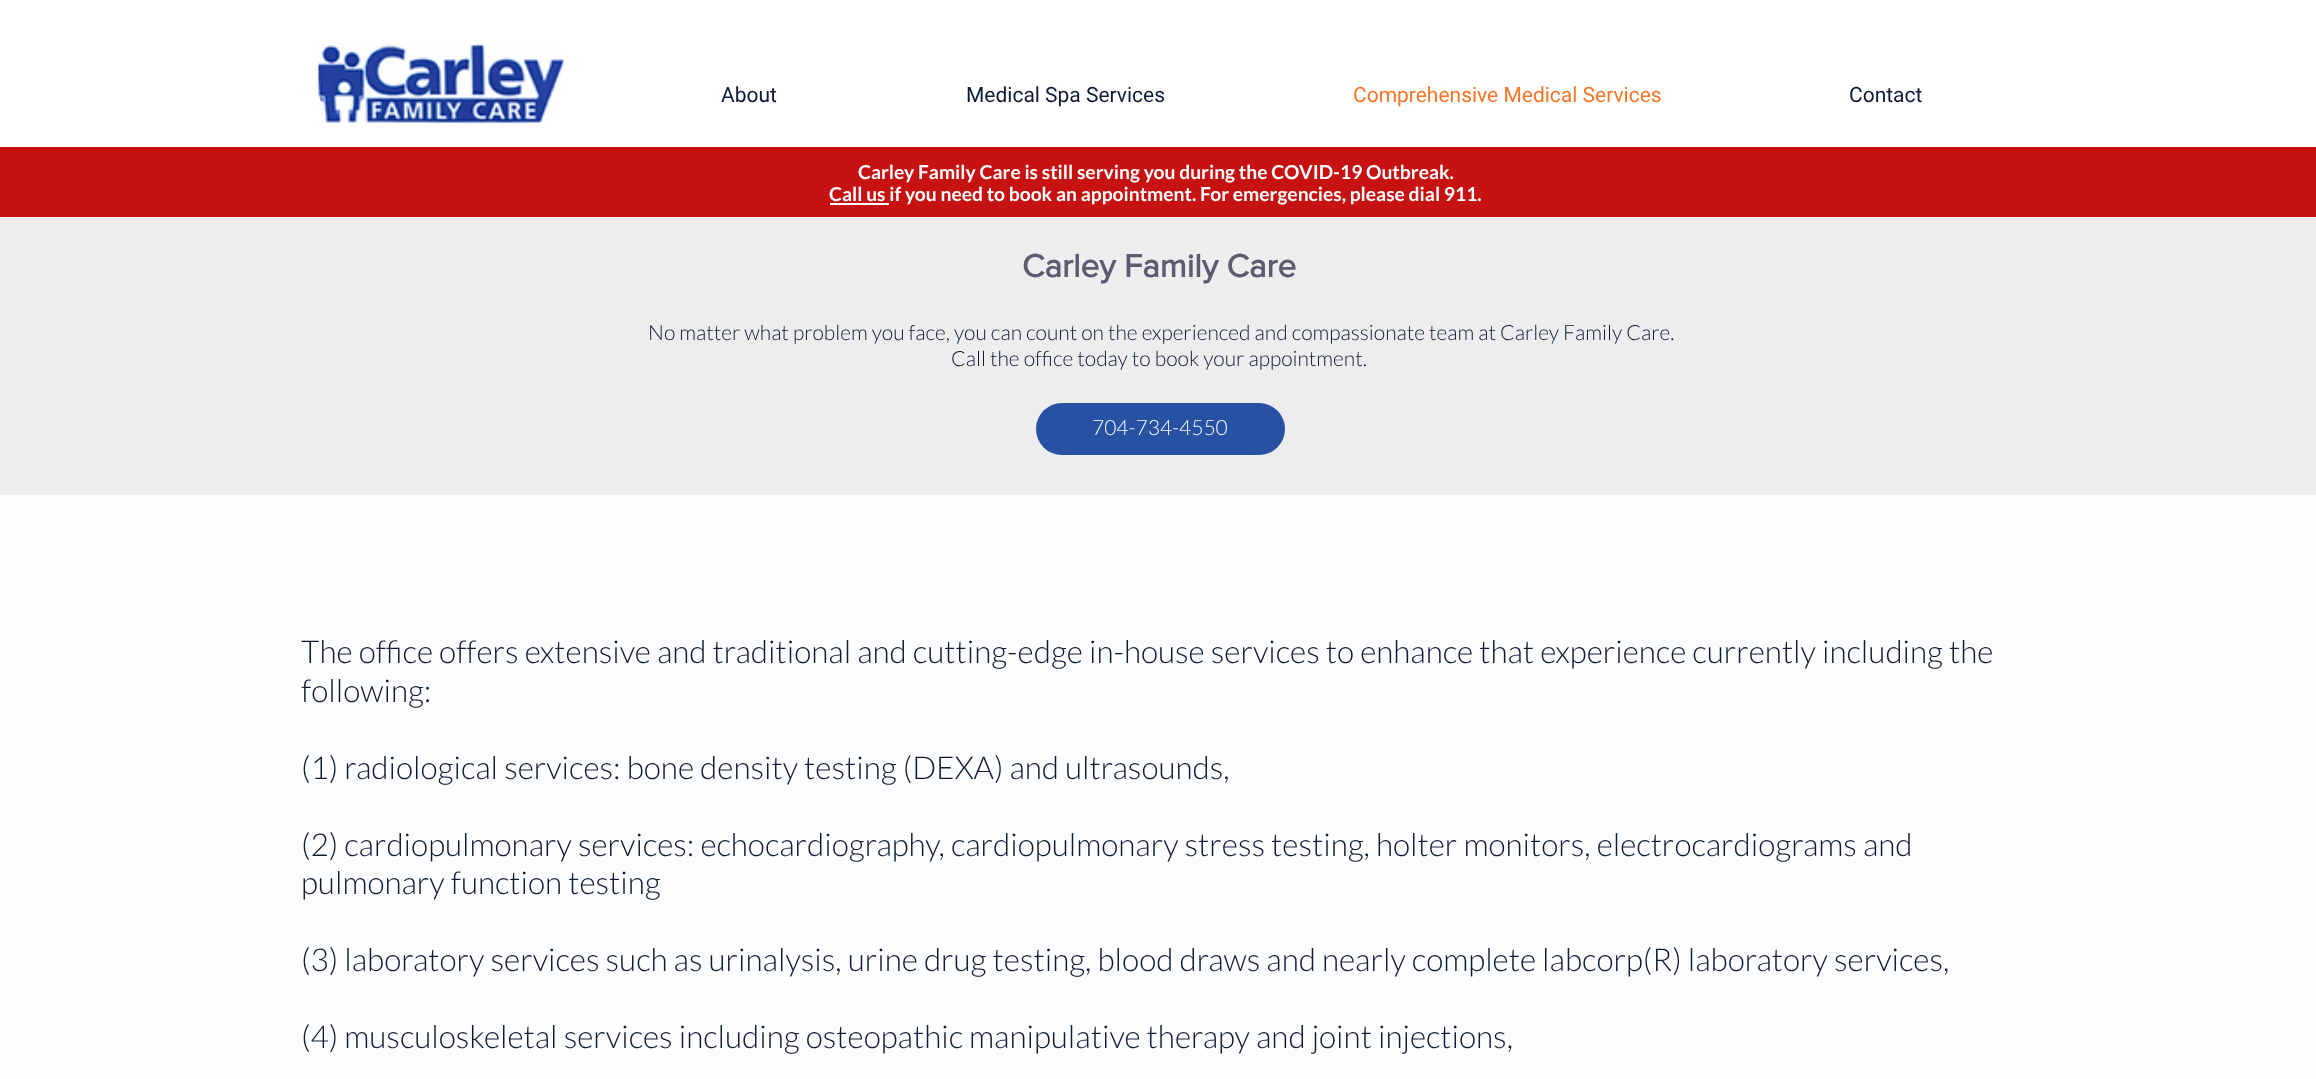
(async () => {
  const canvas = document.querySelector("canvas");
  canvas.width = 2316;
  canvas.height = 1079;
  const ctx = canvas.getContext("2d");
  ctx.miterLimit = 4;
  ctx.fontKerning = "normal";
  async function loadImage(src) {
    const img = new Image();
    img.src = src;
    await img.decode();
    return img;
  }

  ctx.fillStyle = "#fcfdff";
  ctx.fillRect(0, 0, 2316, 1079);
  ctx.fillStyle = "#ffffff";
  ctx.fillRect(0, 0, 2316, 147);
  ctx.drawImage(await loadImage("img/1.png"), 318, 43, 246, 82);
  for (const [x, y, w, h, color] of [
    [0, 147, 2316, 70, "#c71212"],
    [830, 203, 59, 2, "#fcfdff"],
    [0, 217, 2316, 278, "#ededee"],
  ]) {
    ctx.fillStyle = color;
    ctx.fillRect(x, y, w, h);
  }
  ctx.fillStyle = "#2751a3";
  ctx.beginPath();
  ctx.roundRect(1036, 403, 249, 52, 26);
  ctx.fill();
  ctx.font = "21px Roboto";
  ctx.fillStyle = "#0d1b36";
  ctx.fillText("About", 721, 102);
  ctx.fillText("Medical Spa Services", 966, 102);
  ctx.fillStyle = "#f97425";
  ctx.fillText("Comprehensive Medical Services", 1353, 102);
  ctx.fillStyle = "#0d1b36";
  ctx.fillText("Contact", 1849, 102);
  ctx.font = "bold 19.25px Lato";
  ctx.fillStyle = "#fcfdff";
  ctx.fillText("Carley Family Care is still serving you during the COVID-19 Outbreak.", 858, 179);
  ctx.fillText("Call us if you need to book an appointment. For emergencies, please dial 911.", 829, 201);
  ctx.font = "bold 33.25px 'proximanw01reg'";
  ctx.fillStyle = "#5b5c70";
  ctx.fillText("Carley Family Care", 1022, 277);
  ctx.font = "300 21px Lato";
  ctx.fillStyle = "#0d1b36";
  ctx.fillText("No matter what problem you face, you can count on the experienced and compassionate team at Carley Family Care.", 648, 340);
  ctx.fillText("Call the office today to book your appointment.", 951, 366);
  ctx.fillStyle = "#fcfdff";
  ctx.fillText("704-734-4550", 1092, 435);
  ctx.font = "300 31.5px Lato";
  ctx.fillStyle = "#0d1b36";
  for (const [text, x, y] of [
    ["The office offers extensive and traditional and cutting-edge in-house services to enhance that experience currently including the", 301, 663],
    ["following:", 301, 702],
    ["(1) radiological services: bone density testing (DEXA) and ultrasounds,", 301, 779],
    ["(2) cardiopulmonary services: echocardiography, cardiopulmonary stress testing, holter monitors, electrocardiograms and", 301, 856],
    ["pulmonary function testing", 301, 894],
    ["(3) laboratory services such as urinalysis, urine drug testing, blood draws and nearly complete labcorp(R) laboratory services,", 301, 971],
    ["(4) musculoskeletal services including osteopathic manipulative therapy and joint injections,", 301, 1048],
  ]) {
    ctx.fillText(text, x, y);
  }
})();
